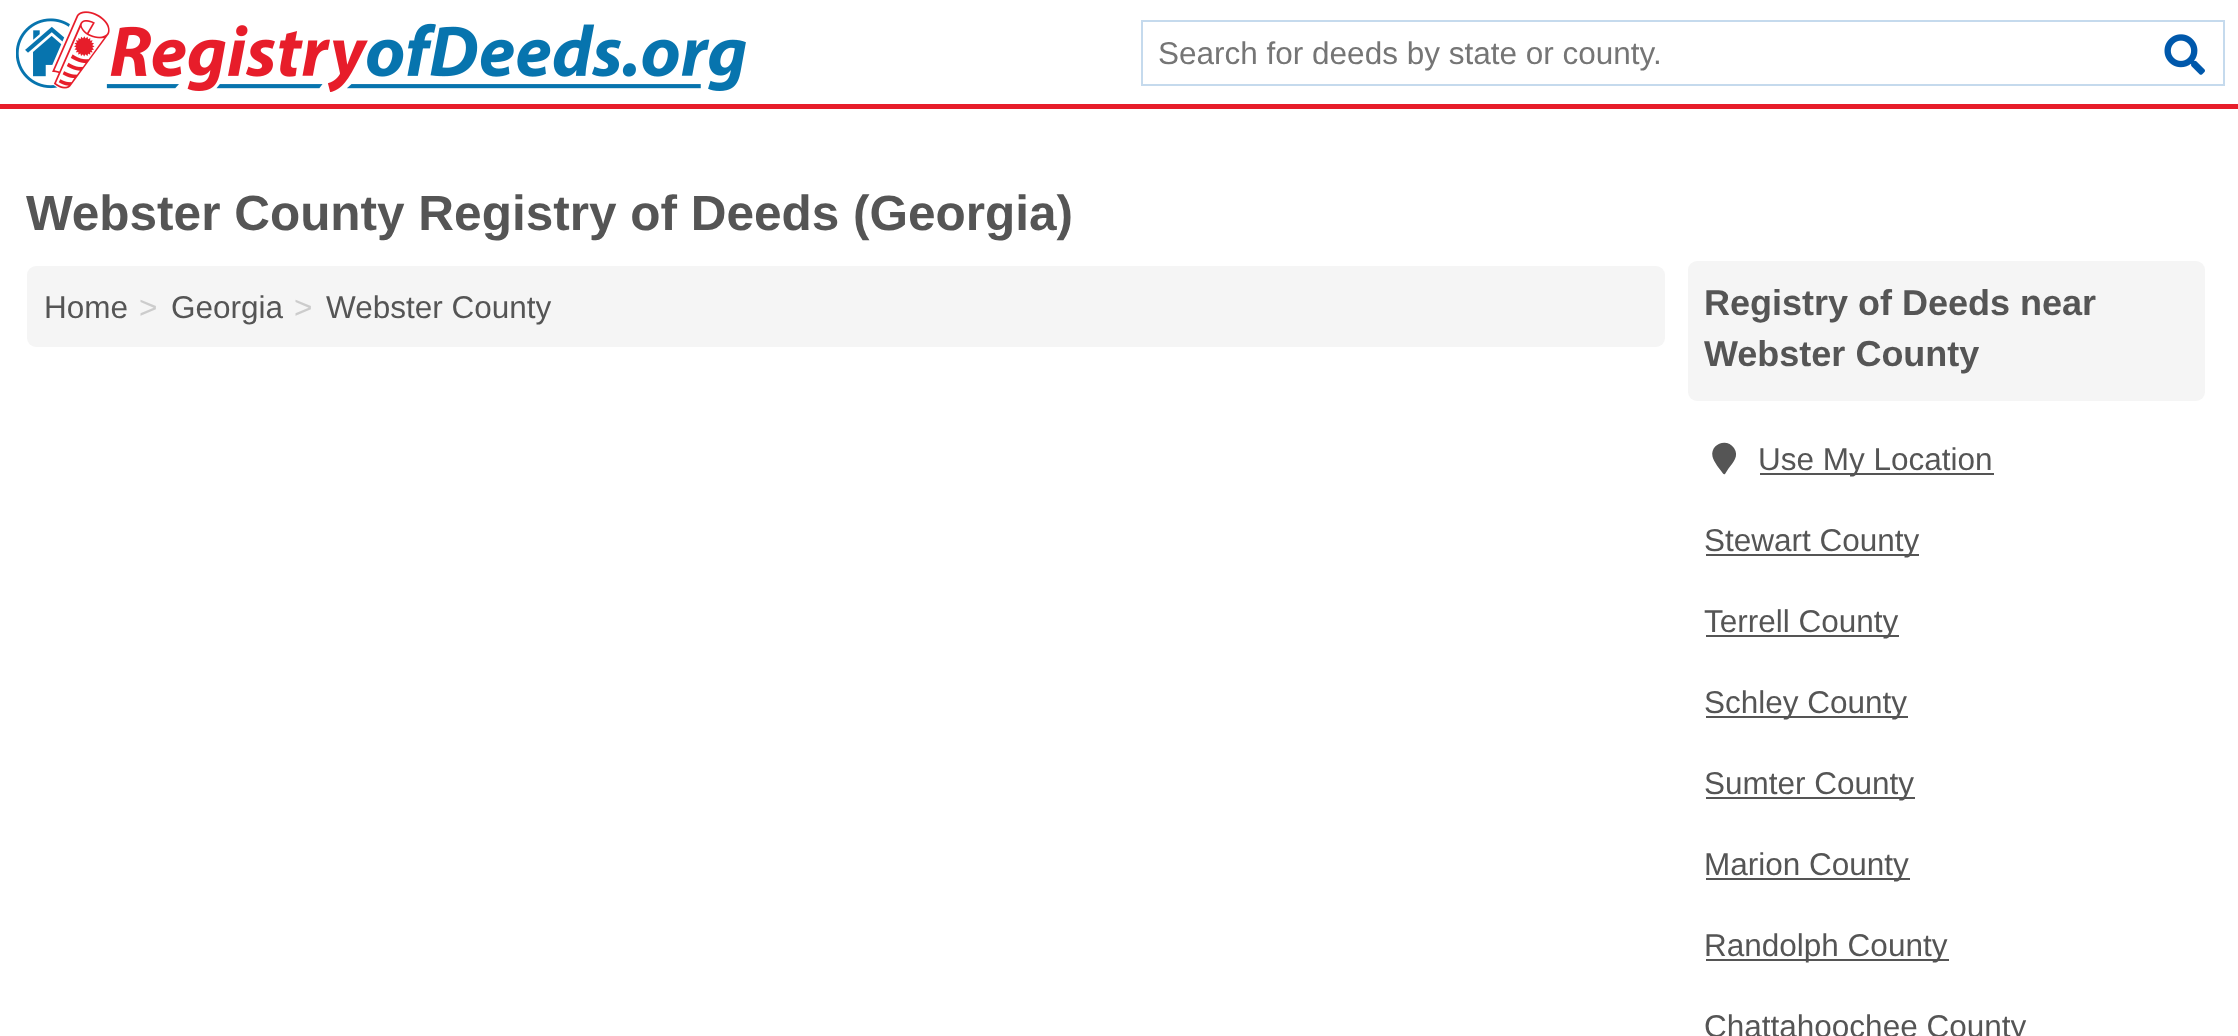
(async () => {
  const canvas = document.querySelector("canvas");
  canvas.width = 2238;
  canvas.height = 1036;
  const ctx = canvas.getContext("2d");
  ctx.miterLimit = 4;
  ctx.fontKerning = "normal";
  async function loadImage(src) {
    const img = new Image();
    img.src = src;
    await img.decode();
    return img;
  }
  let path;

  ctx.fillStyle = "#ffffff";
  ctx.fillRect(0, 0, 2238, 1036);
  ctx.fillStyle = "#e71d2a";
  ctx.fillRect(0, 104, 2238, 5);
  ctx.drawImage(await loadImage("img/1.png"), 16, 11, 730, 81);
  ctx.strokeStyle = "#c5daed";
  ctx.lineWidth = 2;
  ctx.strokeRect(1142, 21, 1082, 64);
  ctx.drawImage(await loadImage("img/2.png"), 2164, 34, 41, 41);
  ctx.fillStyle = "#f5f5f5";
  ctx.beginPath();
  ctx.roundRect(27, 266, 1638, 81, 9);
  ctx.fill();
  ctx.beginPath();
  ctx.roundRect(1688, 261, 517, 140, 9);
  ctx.fill();
  ctx.fillStyle = "#555555";
  path = new Path2D("M1723 473.5C1720 469.5 1713.5 461.5 1712.5 456.5C1710 444 1727 437.5 1734 448C1739.5 456 1733 462.5 1728.5 468.5L1725 474C1724 474.5 1723.5 474 1723 473.5Z");
  ctx.fill(path);
  for (const [x, y, w, h, color] of [
    [1760, 473, 234, 2, "#555555"],
    [1706, 554, 213, 2, "#555555"],
    [1706, 635, 193, 2, "#555555"],
    [1706, 716, 202, 2, "#555555"],
    [1706, 797, 209, 2, "#555555"],
    [1706, 878, 204, 2, "#555555"],
    [1706, 959, 243, 2, "#555555"],
  ]) {
    ctx.fillStyle = color;
    ctx.fillRect(x, y, w, h);
  }
  ctx.font = "31.5px Liberation Sans";
  ctx.fillStyle = "#757575";
  ctx.fillText("Search for deeds by state or county.", 1158, 64);
  ctx.font = "bold 49.5px Liberation Sans";
  ctx.fillStyle = "#555555";
  ctx.fillText("Webster County Registry of Deeds (Georgia)", 26, 230);
  ctx.font = "31.5px Liberation Sans";
  ctx.fillText("Home", 44, 318);
  ctx.fillStyle = "#cccccc";
  ctx.fillText(">", 139, 318);
  ctx.fillStyle = "#555555";
  ctx.fillText("Georgia", 171, 318);
  ctx.fillStyle = "#cccccc";
  ctx.fillText(">", 294, 318);
  ctx.fillStyle = "#555555";
  ctx.fillText("Webster County", 326, 318);
  ctx.font = "bold 36px Liberation Sans";
  ctx.fillText("Registry of Deeds near", 1704, 315);
  ctx.fillText("Webster County", 1704, 366);
  ctx.font = "31.5px Liberation Sans";
  for (const [text, x, y] of [
    ["Use My Location", 1758, 470],
    ["Stewart County", 1704, 551],
    ["Terrell County", 1704, 632],
    ["Schley County", 1704, 713],
    ["Sumter County", 1704, 794],
    ["Marion County", 1704, 875],
    ["Randolph County", 1704, 956],
    ["Chattahoochee County", 1704, 1037],
  ]) {
    ctx.fillText(text, x, y);
  }
})();
